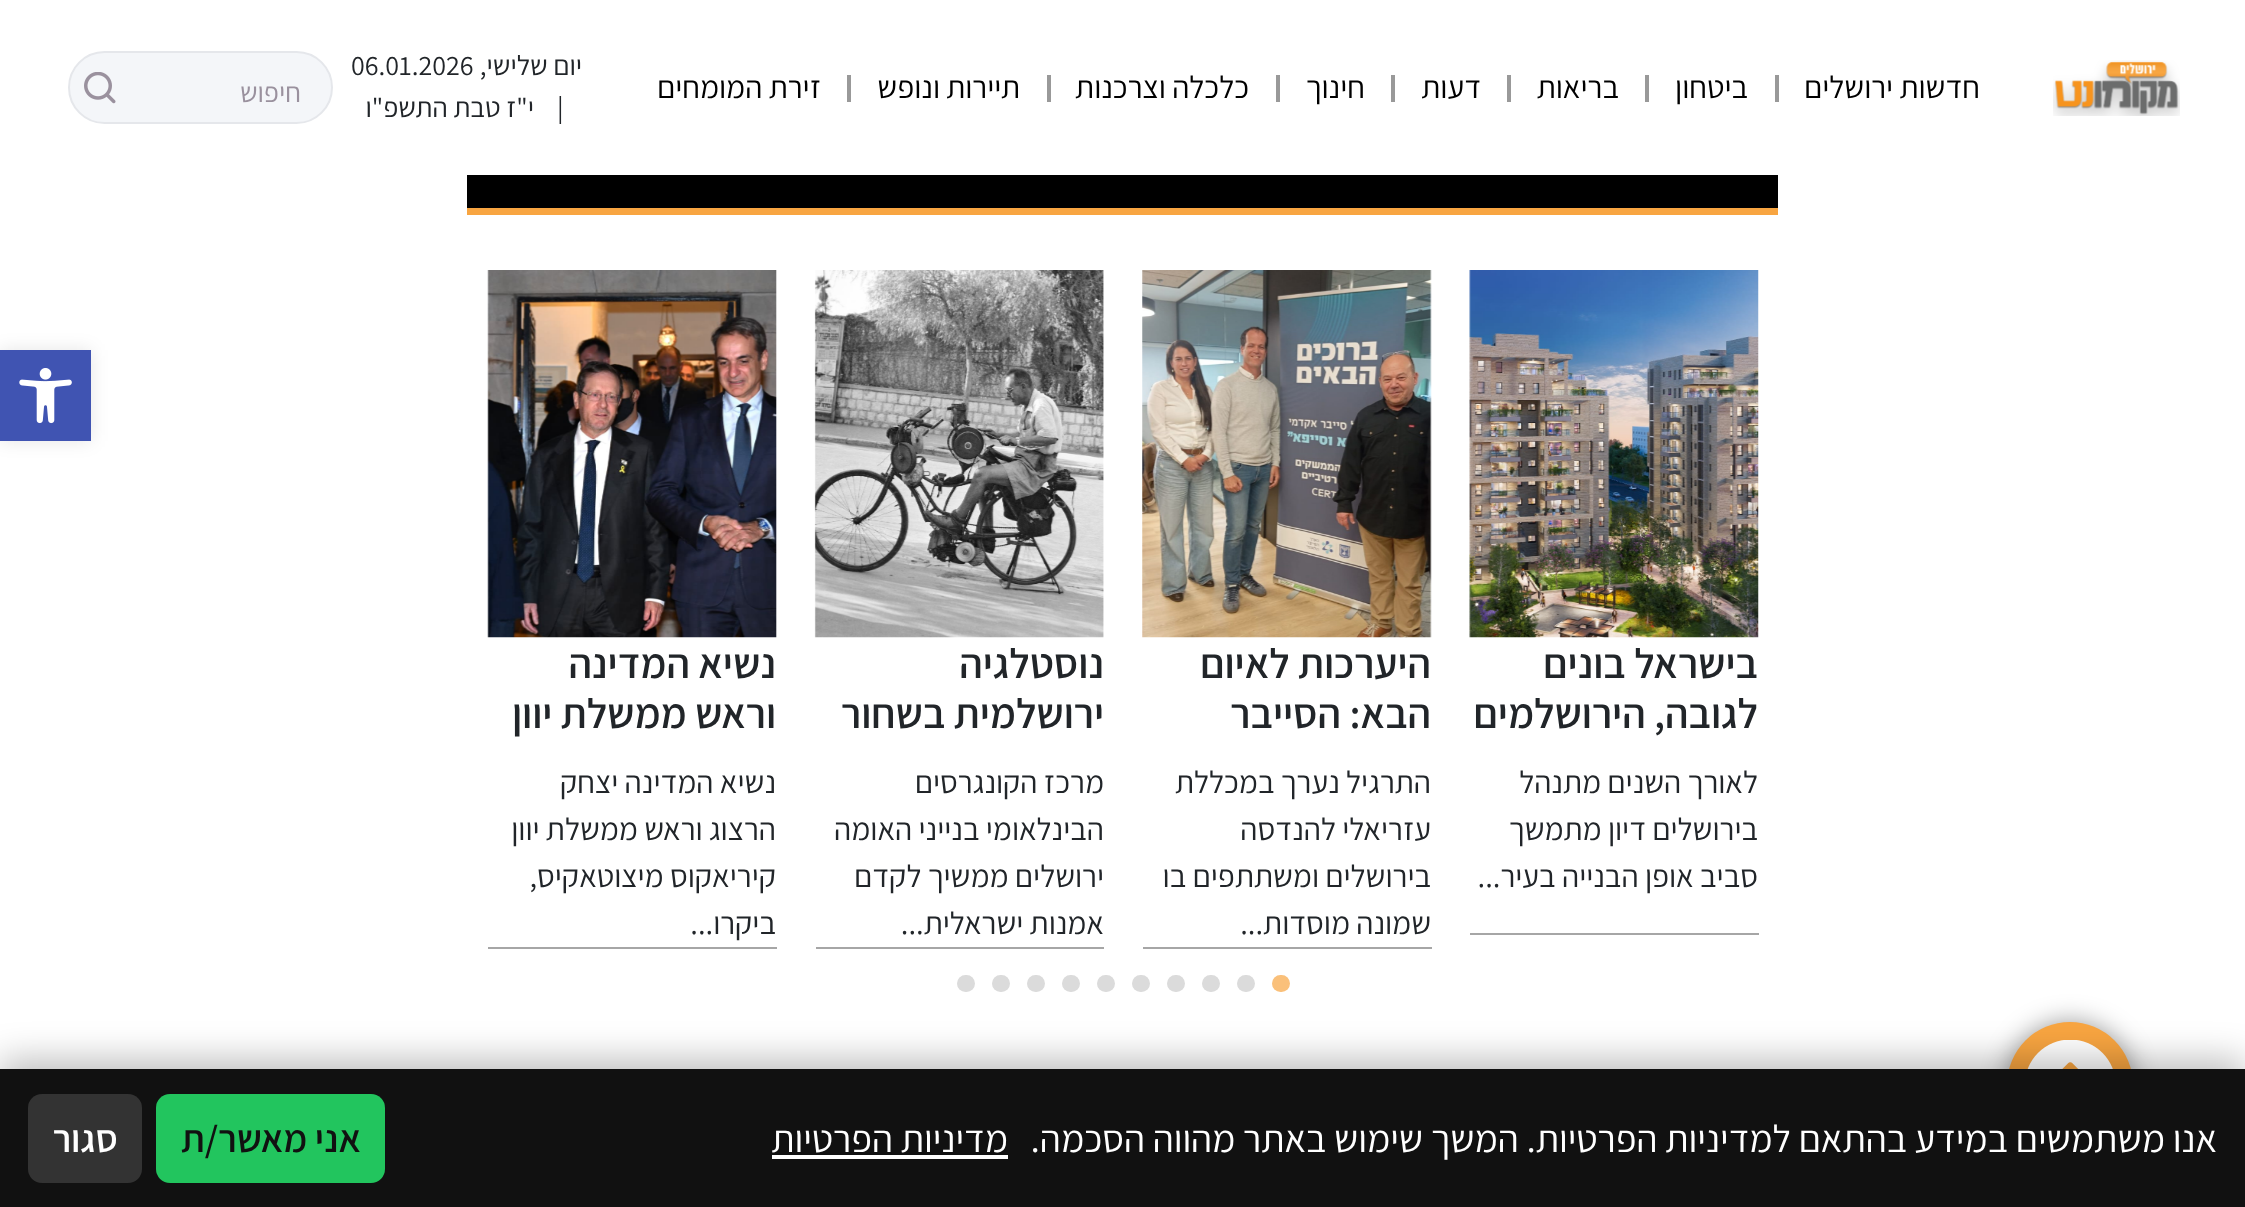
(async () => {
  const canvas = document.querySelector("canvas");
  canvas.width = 2245;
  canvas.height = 1207;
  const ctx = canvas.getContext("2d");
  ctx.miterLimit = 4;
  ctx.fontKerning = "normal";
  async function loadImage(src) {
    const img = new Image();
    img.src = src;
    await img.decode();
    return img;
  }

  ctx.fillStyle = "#ffffff";
  ctx.fillRect(0, 0, 2245, 1207);
  ctx.drawImage(await loadImage("img/1.png"), 2053, 60, 127, 56);
  for (const [x, y, w, h, color] of [
    [1775, 75, 4, 27, "#999999"],
    [1645, 75, 4, 27, "#999999"],
    [1507, 75, 4, 27, "#999999"],
    [1391, 75, 4, 27, "#999999"],
    [1276, 75, 4, 27, "#999999"],
    [1047, 75, 4, 27, "#999999"],
    [847, 75, 4, 27, "#999999"],
  ]) {
    ctx.fillStyle = color;
    ctx.fillRect(x, y, w, h);
  }
  ctx.fillStyle = "#f4f6f9";
  ctx.beginPath();
  ctx.roundRect(69, 52, 263, 71, 35.5);
  ctx.fill();
  ctx.strokeStyle = "#e5e7eb";
  ctx.lineWidth = 2;
  ctx.stroke();
  ctx.drawImage(await loadImage("img/2.png"), 84, 72, 32, 32);
  ctx.fillStyle = "rgba(0, 0, 0, 0.1)";
  ctx.filter = "blur(9px)";
  ctx.beginPath();
  ctx.rect(0, 350, 91, 91);
  ctx.fill();
  ctx.filter = "none";
  ctx.fillStyle = "#4054b2";
  ctx.fillRect(0, 350, 91, 91);
  ctx.drawImage(await loadImage("img/3.png"), 19, 368, 53, 56);
  ctx.fillStyle = "#000000";
  ctx.fillRect(467, 175, 1311, 33);
  ctx.fillStyle = "#f8a541";
  ctx.fillRect(467, 208, 1311, 7);
  ctx.drawImage(await loadImage("img/4.png"), 1469, 270, 290, 368);
  ctx.fillStyle = "#a6a6a6";
  ctx.fillRect(1470, 933, 289, 2);
  ctx.drawImage(await loadImage("img/5.png"), 1142, 270, 290, 368);
  ctx.fillRect(1143, 947, 289, 2);
  ctx.drawImage(await loadImage("img/6.png"), 814, 270, 290, 368);
  ctx.fillRect(816, 947, 288, 2);
  ctx.drawImage(await loadImage("img/7.png"), 487, 270, 290, 368);
  ctx.fillRect(488, 947, 289, 2);
  ctx.fillStyle = "#fac07a";
  ctx.beginPath();
  ctx.roundRect(1272, 975, 18, 17, 8.5);
  ctx.fill();
  ctx.fillStyle = "#dbdbdb";
  ctx.beginPath();
  ctx.roundRect(1237, 975, 18, 17, 8.5);
  ctx.fill();
  ctx.beginPath();
  ctx.roundRect(1202, 975, 18, 17, 8.5);
  ctx.fill();
  ctx.beginPath();
  ctx.roundRect(1167, 975, 18, 17, 8.5);
  ctx.fill();
  ctx.beginPath();
  ctx.roundRect(1132, 975, 18, 17, 8.5);
  ctx.fill();
  ctx.beginPath();
  ctx.roundRect(1097, 975, 18, 17, 8.5);
  ctx.fill();
  ctx.beginPath();
  ctx.roundRect(1062, 975, 18, 17, 8.5);
  ctx.fill();
  ctx.beginPath();
  ctx.roundRect(1027, 975, 18, 17, 8.5);
  ctx.fill();
  ctx.beginPath();
  ctx.roundRect(992, 975, 18, 17, 8.5);
  ctx.fill();
  ctx.beginPath();
  ctx.roundRect(957, 975, 18, 17, 8.5);
  ctx.fill();
  ctx.fillStyle = "rgba(0, 0, 0, 0.4)";
  ctx.filter = "blur(13px)";
  ctx.beginPath();
  ctx.roundRect(2007, 1022, 126, 126, 63);
  ctx.fill();
  ctx.filter = "none";
  ctx.fillStyle = "#f8a541";
  ctx.beginPath();
  ctx.arc(2070, 1085, 63, 0, Math.PI * 2);
  ctx.fill();
  ctx.drawImage(await loadImage("img/8.png"), 2027, 1040, 86, 29);
  ctx.fillStyle = "rgba(0, 0, 0, 0.25)";
  ctx.filter = "blur(17.5px)";
  ctx.beginPath();
  ctx.rect(0, 1059, 2245, 138);
  ctx.fill();
  ctx.filter = "none";
  ctx.fillStyle = "#111111";
  ctx.fillRect(0, 1069, 2245, 138);
  ctx.fillStyle = "#ffffff";
  ctx.fillRect(772, 1155, 236, 4);
  ctx.fillStyle = "#22c55e";
  ctx.beginPath();
  ctx.roundRect(156, 1094, 229, 89, 14);
  ctx.fill();
  ctx.fillStyle = "#333333";
  ctx.beginPath();
  ctx.roundRect(28, 1094, 114, 89, 14);
  ctx.fill();
  ctx.direction = "rtl";
  ctx.font = "31.5px Assistant";
  ctx.fillStyle = "#000000";
  for (const [text, x, y] of [
    ["חדשות ירושלים", 1980, 98],
    ["ביטחון", 1748, 98],
    ["בריאות", 1619, 98],
    ["דעות", 1481, 98],
    ["חינוך", 1365, 98],
    ["כלכלה וצרכנות", 1249, 98],
    ["תיירות ונופש", 1020, 98],
    ["זירת המומחים", 821, 98],
  ]) {
    ctx.fillText(text, x, y);
  }
  ctx.font = "28px Assistant";
  ctx.fillStyle = "#212529";
  ctx.fillText("יום שלישי,", 582, 75);
  ctx.direction = "ltr";
  ctx.fillText("06.01.2026", 351, 75);
  ctx.fillText("|", 557, 117);
  ctx.direction = "rtl";
  ctx.fillText("י\"ז טבת התשפ\"ו", 534, 117);
  ctx.fillStyle = "#9a919e";
  ctx.fillText("חיפוש", 301, 102);
  ctx.font = "600 42px Assistant";
  ctx.fillStyle = "#212529";
  ctx.fillText("בישראל בונים", 1758, 678);
  ctx.fillText("לגובה, הירושלמים", 1758, 728);
  ctx.font = "31.5px Assistant";
  for (const [text, x, y] of [
    ["לאורך השנים מתנהל", 1758, 793],
    ["בירושלים דיון מתמשך", 1758, 840],
    ["סביב אופן הבנייה בעיר...", 1758, 887],
  ]) {
    ctx.fillText(text, x, y);
  }
  ctx.font = "600 42px Assistant";
  ctx.fillText("היערכות לאיום", 1431, 678);
  ctx.fillText("הבא: הסייבר", 1431, 728);
  ctx.font = "31.5px Assistant";
  for (const [text, x, y] of [
    ["התרגיל נערך במכללת", 1431, 793],
    ["עזריאלי להנדסה", 1431, 840],
    ["בירושלים ומשתתפים בו", 1431, 887],
    ["שמונה מוסדות...", 1431, 934],
  ]) {
    ctx.fillText(text, x, y);
  }
  ctx.font = "600 42px Assistant";
  ctx.fillText("נוסטלגיה", 1104, 678);
  ctx.fillText("ירושלמית בשחור", 1104, 728);
  ctx.font = "31.5px Assistant";
  for (const [text, x, y] of [
    ["מרכז הקונגרסים", 1104, 793],
    ["הבינלאומי בנייני האומה", 1104, 840],
    ["ירושלים ממשיך לקדם", 1104, 887],
    ["אמנות ישראלית...", 1104, 934],
  ]) {
    ctx.fillText(text, x, y);
  }
  ctx.font = "600 42px Assistant";
  ctx.fillText("נשיא המדינה", 776, 678);
  ctx.fillText("וראש ממשלת יוון", 776, 728);
  ctx.font = "31.5px Assistant";
  for (const [text, x, y] of [
    ["נשיא המדינה יצחק", 776, 793],
    ["הרצוג וראש ממשלת יוון", 776, 840],
    ["קיריאקוס מיצוטאקיס,", 776, 887],
    ["ביקרו...", 776, 934],
  ]) {
    ctx.fillText(text, x, y);
  }
  ctx.font = "38.5px Assistant";
  ctx.fillStyle = "#ffffff";
  ctx.fillText("אנו משתמשים במידע בהתאם למדיניות הפרטיות. המשך שימוש באתר מהווה הסכמה.", 2217, 1152);
  ctx.fillText("מדיניות הפרטיות", 1008, 1152);
  ctx.font = "600 38.5px Assistant";
  ctx.fillStyle = "#111111";
  ctx.fillText("אני מאשר/ת", 361, 1152);
  ctx.fillStyle = "#ffffff";
  ctx.fillText("סגור", 118, 1152);
})();
